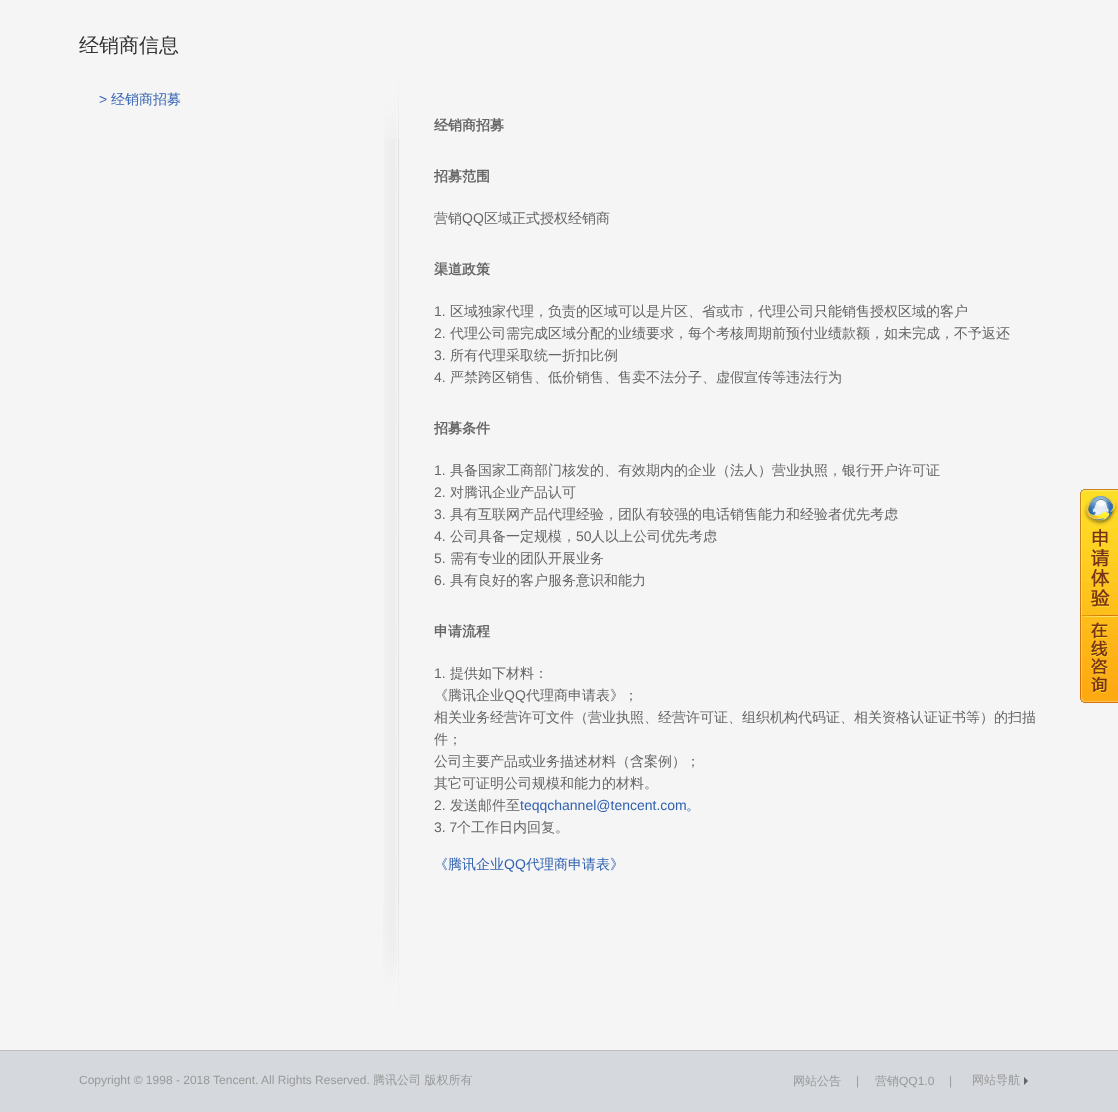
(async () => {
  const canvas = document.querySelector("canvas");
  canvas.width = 1118;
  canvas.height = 1112;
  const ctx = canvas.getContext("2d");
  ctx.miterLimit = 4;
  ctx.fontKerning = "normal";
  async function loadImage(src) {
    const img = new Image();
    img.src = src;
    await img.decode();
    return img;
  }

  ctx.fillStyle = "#d5d8dd";
  ctx.fillRect(0, 0, 1118, 1112);
  ctx.fillStyle = "#f5f5f5";
  ctx.fillRect(0, 0, 1118, 1050);
  ctx.fillStyle = "#bbbbbb";
  ctx.fillRect(0, 1050, 1118, 1);
  ctx.drawImage(await loadImage("img/1.png"), 384, 139, 15, 766);
  ctx.drawImage(await loadImage("img/2.png"), 384, 70, 15, 69);
  ctx.drawImage(await loadImage("img/3.png"), 383, 905, 16, 115);
  ctx.drawImage(await loadImage("img/4.png"), 1080, 489, 38, 127);
  ctx.drawImage(await loadImage("img/5.png"), 1080, 616, 38, 87);
  ctx.drawImage(await loadImage("img/6.png"), 1024, 1077, 4, 8);
  ctx.font = "500 20px WenQuanYi Zen Hei";
  ctx.fillStyle = "#333333";
  ctx.fillText("经销商信息", 79, 52);
  ctx.font = "14px Liberation Sans";
  ctx.fillStyle = "#3665b4";
  ctx.fillText(">", 99, 104);
  ctx.font = "500 14px WenQuanYi Zen Hei";
  ctx.fillText("经销商招募", 111, 104);
  ctx.font = "bold 14px WenQuanYi Zen Hei";
  ctx.fillStyle = "#666666";
  ctx.fillText("经销商招募", 434, 130);
  ctx.fillText("招募范围", 434, 181);
  ctx.font = "500 14px WenQuanYi Zen Hei";
  ctx.fillText("营销", 434, 223);
  ctx.font = "14px Liberation Sans";
  ctx.fillText("QQ", 462, 223);
  ctx.font = "500 14px WenQuanYi Zen Hei";
  ctx.fillText("区域正式授权经销商", 484, 223);
  ctx.font = "bold 14px WenQuanYi Zen Hei";
  ctx.fillText("渠道政策", 434, 274);
  ctx.font = "14px Liberation Sans";
  ctx.fillText("1.", 434, 316);
  ctx.font = "500 14px WenQuanYi Zen Hei";
  ctx.fillText("区域独家代理，负责的区域可以是片区、省或市，代理公司只能销售授权区域的客户", 450, 316);
  ctx.font = "14px Liberation Sans";
  ctx.fillText("2.", 434, 338);
  ctx.font = "500 14px WenQuanYi Zen Hei";
  ctx.fillText("代理公司需完成区域分配的业绩要求，每个考核周期前预付业绩款额，如未完成，不予返还", 450, 338);
  ctx.font = "14px Liberation Sans";
  ctx.fillText("3.", 434, 360);
  ctx.font = "500 14px WenQuanYi Zen Hei";
  ctx.fillText("所有代理采取统一折扣比例", 450, 360);
  ctx.font = "14px Liberation Sans";
  ctx.fillText("4.", 434, 382);
  ctx.font = "500 14px WenQuanYi Zen Hei";
  ctx.fillText("严禁跨区销售、低价销售、售卖不法分子、虚假宣传等违法行为", 450, 382);
  ctx.font = "bold 14px WenQuanYi Zen Hei";
  ctx.fillText("招募条件", 434, 433);
  ctx.font = "14px Liberation Sans";
  ctx.fillText("1.", 434, 475);
  ctx.font = "500 14px WenQuanYi Zen Hei";
  ctx.fillText("具备国家工商部门核发的、有效期内的企业（法人）营业执照，银行开户许可证", 450, 475);
  ctx.font = "14px Liberation Sans";
  ctx.fillText("2.", 434, 497);
  ctx.font = "500 14px WenQuanYi Zen Hei";
  ctx.fillText("对腾讯企业产品认可", 450, 497);
  ctx.font = "14px Liberation Sans";
  ctx.fillText("3.", 434, 519);
  ctx.font = "500 14px WenQuanYi Zen Hei";
  ctx.fillText("具有互联网产品代理经验，团队有较强的电话销售能力和经验者优先考虑", 450, 519);
  ctx.font = "14px Liberation Sans";
  ctx.fillText("4.", 434, 541);
  ctx.font = "500 14px WenQuanYi Zen Hei";
  ctx.fillText("公司具备一定规模，", 450, 541);
  ctx.font = "14px Liberation Sans";
  ctx.fillText("50", 576, 541);
  ctx.font = "500 14px WenQuanYi Zen Hei";
  ctx.fillText("人以上公司优先考虑", 591, 541);
  ctx.font = "14px Liberation Sans";
  ctx.fillText("5.", 434, 563);
  ctx.font = "500 14px WenQuanYi Zen Hei";
  ctx.fillText("需有专业的团队开展业务", 450, 563);
  ctx.font = "14px Liberation Sans";
  ctx.fillText("6.", 434, 585);
  ctx.font = "500 14px WenQuanYi Zen Hei";
  ctx.fillText("具有良好的客户服务意识和能力", 450, 585);
  ctx.font = "bold 14px WenQuanYi Zen Hei";
  ctx.fillText("申请流程", 434, 636);
  ctx.font = "14px Liberation Sans";
  ctx.fillText("1.", 434, 678);
  ctx.font = "500 14px WenQuanYi Zen Hei";
  ctx.fillText("提供如下材料：", 450, 678);
  ctx.fillText("《腾讯企业", 434, 700);
  ctx.font = "14px Liberation Sans";
  ctx.fillText("QQ", 504, 700);
  ctx.font = "500 14px WenQuanYi Zen Hei";
  for (const [text, x, y] of [
    ["代理商申请表》；", 526, 700],
    ["相关业务经营许可文件（营业执照、经营许可证、组织机构代码证、相关资格认证证书等）的扫描", 434, 722],
    ["件；", 434, 744],
    ["公司主要产品或业务描述材料（含案例）；", 434, 766],
    ["其它可证明公司规模和能力的材料。", 434, 788],
  ]) {
    ctx.fillText(text, x, y);
  }
  ctx.font = "14px Liberation Sans";
  ctx.fillText("2.", 434, 810);
  ctx.font = "500 14px WenQuanYi Zen Hei";
  ctx.fillText("发送邮件至", 450, 810);
  ctx.font = "14px Liberation Sans";
  ctx.fillStyle = "#3061b0";
  ctx.fillText("teqqchannel@tencent.com", 520, 810);
  ctx.font = "500 14px WenQuanYi Zen Hei";
  ctx.fillText("。", 686, 810);
  ctx.font = "14px Liberation Sans";
  ctx.fillStyle = "#666666";
  ctx.fillText("3. 7", 434, 832);
  ctx.font = "500 14px WenQuanYi Zen Hei";
  ctx.fillText("个工作日内回复。", 457, 832);
  ctx.fillStyle = "#3061b0";
  ctx.fillText("《腾讯企业", 434, 869);
  ctx.font = "14px Liberation Sans";
  ctx.fillText("QQ", 504, 869);
  ctx.font = "500 14px WenQuanYi Zen Hei";
  ctx.fillText("代理商申请表》", 526, 869);
  ctx.font = "12px Liberation Sans";
  ctx.fillStyle = "#999999";
  ctx.fillText("Copyright © 1998 - 2018 Tencent. All Rights Reserved.", 79, 1084);
  ctx.font = "500 12px WenQuanYi Zen Hei";
  ctx.fillText("腾讯公司 版权所有", 373, 1084);
  ctx.fillText("网站公告", 793, 1085);
  ctx.font = "12px Liberation Sans";
  ctx.fillText("|", 856, 1085);
  ctx.font = "500 12px WenQuanYi Zen Hei";
  ctx.fillText("营销", 875, 1085);
  ctx.font = "12px Liberation Sans";
  ctx.fillText("QQ1.0", 899, 1085);
  ctx.fillText("|", 949, 1085);
  ctx.font = "500 12px WenQuanYi Zen Hei";
  ctx.fillText("网站导航", 972, 1084);
})();
